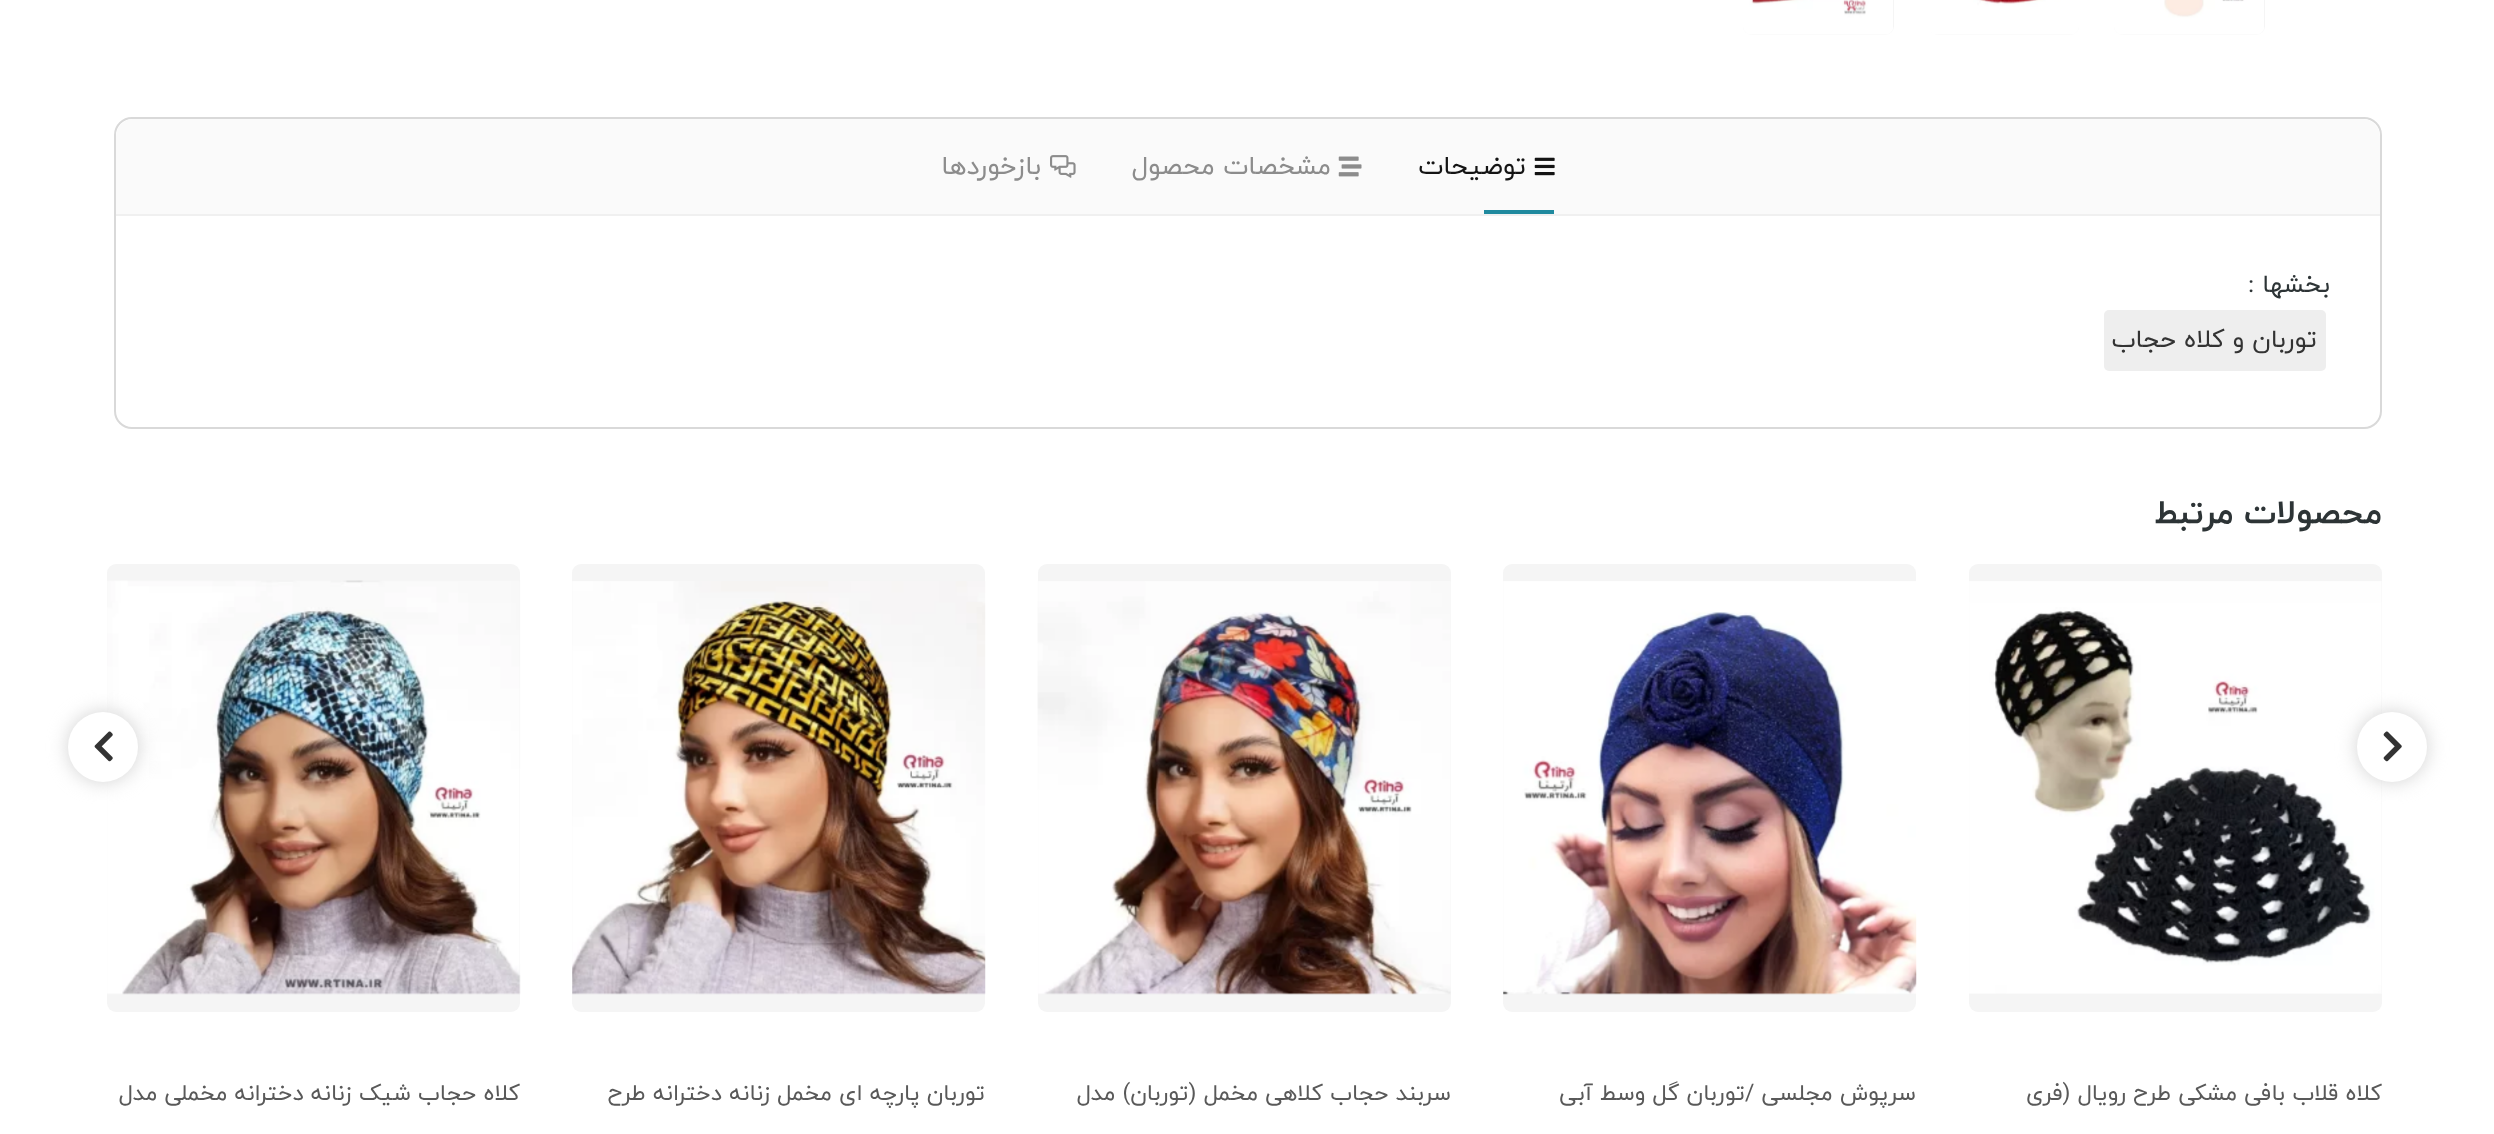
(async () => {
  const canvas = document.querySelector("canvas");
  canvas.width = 2494;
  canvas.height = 1134;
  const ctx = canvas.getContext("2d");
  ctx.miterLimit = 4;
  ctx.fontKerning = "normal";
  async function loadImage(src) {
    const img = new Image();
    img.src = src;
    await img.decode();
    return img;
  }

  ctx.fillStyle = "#ffffff";
  ctx.fillRect(0, 0, 2494, 1134);
  ctx.fillStyle = "#f5f5f5";
  ctx.beginPath();
  ctx.roundRect(2114, -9, 151, 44, 9);
  ctx.fill();
  ctx.drawImage(await loadImage("img/1.png"), 2114, 0, 150, 35);
  ctx.beginPath();
  ctx.roundRect(1929, -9, 150, 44, 9);
  ctx.fill();
  ctx.drawImage(await loadImage("img/2.png"), 1929, 0, 150, 35);
  ctx.beginPath();
  ctx.roundRect(1743, -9, 151, 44, 9);
  ctx.fill();
  ctx.drawImage(await loadImage("img/3.png"), 1743, 0, 150, 35);
  ctx.beginPath();
  ctx.roundRect(115, 118, 2266, 310, 17);
  ctx.strokeStyle = "#d9d9d9";
  ctx.lineWidth = 2;
  ctx.stroke();
  ctx.fillStyle = "#fafafa";
  ctx.beginPath();
  ctx.roundRect(116, 119, 2264, 96, [18, 18, 0, 0]);
  ctx.fill();
  ctx.fillStyle = "#f0f0f0";
  ctx.fillRect(116, 214, 2264, 2);
  ctx.drawImage(await loadImage("img/4.png"), 1534, 157, 21, 19);
  ctx.fillStyle = "#208a9f";
  ctx.fillRect(1484, 210, 70, 4);
  ctx.drawImage(await loadImage("img/5.png"), 1338, 156, 24, 21);
  ctx.drawImage(await loadImage("img/6.png"), 1050, 155, 26, 23);
  ctx.fillStyle = "#eeeeee";
  ctx.beginPath();
  ctx.roundRect(2104, 310, 222, 61, 5);
  ctx.fill();
  ctx.fillStyle = "#f5f5f5";
  ctx.beginPath();
  ctx.roundRect(1969, 564, 413, 448, 9);
  ctx.fill();
  ctx.drawImage(await loadImage("img/9.png"), 1969, 581, 413, 413);
  ctx.fillStyle = "#d2d2d2";
  ctx.filter = "blur(9.5px)";
  ctx.beginPath();
  ctx.roundRect(2357, 712, 70, 70, 35);
  ctx.fill();
  ctx.filter = "none";
  ctx.fillStyle = "#ffffff";
  ctx.beginPath();
  ctx.arc(2392, 747, 35, 0, Math.PI * 2);
  ctx.fill();
  ctx.drawImage(await loadImage("img/7.png"), 2383, 731, 19, 31);
  ctx.fillStyle = "#f5f5f5";
  ctx.beginPath();
  ctx.roundRect(107, 564, 413, 448, 9);
  ctx.fill();
  ctx.drawImage(await loadImage("img/13.png"), 107, 580, 414, 415);
  ctx.fillStyle = "#d2d2d2";
  ctx.filter = "blur(9.5px)";
  ctx.beginPath();
  ctx.roundRect(68, 712, 70, 70, 35);
  ctx.fill();
  ctx.filter = "none";
  ctx.fillStyle = "#ffffff";
  ctx.beginPath();
  ctx.arc(103, 747, 35, 0, Math.PI * 2);
  ctx.fill();
  ctx.drawImage(await loadImage("img/8.png"), 94, 731, 19, 31);
  ctx.fillStyle = "#f5f5f5";
  ctx.beginPath();
  ctx.roundRect(1503, 564, 413, 448, 9);
  ctx.fill();
  ctx.drawImage(await loadImage("img/10.png"), 1503, 581, 414, 414);
  ctx.beginPath();
  ctx.roundRect(1038, 564, 413, 448, 9);
  ctx.fill();
  ctx.drawImage(await loadImage("img/11.png"), 1037, 581, 414, 414);
  ctx.beginPath();
  ctx.roundRect(572, 564, 413, 448, 9);
  ctx.fill();
  ctx.drawImage(await loadImage("img/12.png"), 572, 581, 414, 414);
  ctx.direction = "rtl";
  ctx.font = "26.25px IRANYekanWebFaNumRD";
  ctx.fillStyle = "#141414";
  ctx.fillText("توضیحات", 1526, 174);
  ctx.fillStyle = "#8c8c8c";
  ctx.fillText("مشخصات محصول", 1331, 174);
  ctx.fillText("بازخوردها", 1041, 174);
  ctx.font = "25.25px IRANYekanWebFaNumRD";
  ctx.fillStyle = "#2d3436";
  ctx.fillText("بخشها :", 2330, 292);
  ctx.fillStyle = "#333333";
  ctx.fillText("توربان و کلاه حجاب", 2317, 347);
  ctx.font = "bold 33.5px IRANYekanWebFaNumRD";
  ctx.fillStyle = "#2d3436";
  ctx.fillText("محصولات مرتبط", 2382, 523);
  ctx.font = "22.75px IRANYekanWebFaNumRD";
  ctx.fillStyle = "#595959";
  for (const [text, x, y] of [
    ["کلاه قلاب بافی مشکی طرح رویال (فری", 2382, 1100],
    ["سرپوش مجلسی /توربان گل وسط آبی", 1916, 1100],
    ["سربند حجاب کلاهی مخمل (توربان) مدل", 1451, 1100],
    ["توربان پارچه ای مخمل زنانه دخترانه طرح", 985, 1100],
    ["کلاه حجاب شیک زنانه دخترانه مخملی مدل", 520, 1100],
  ]) {
    ctx.fillText(text, x, y);
  }
})();
